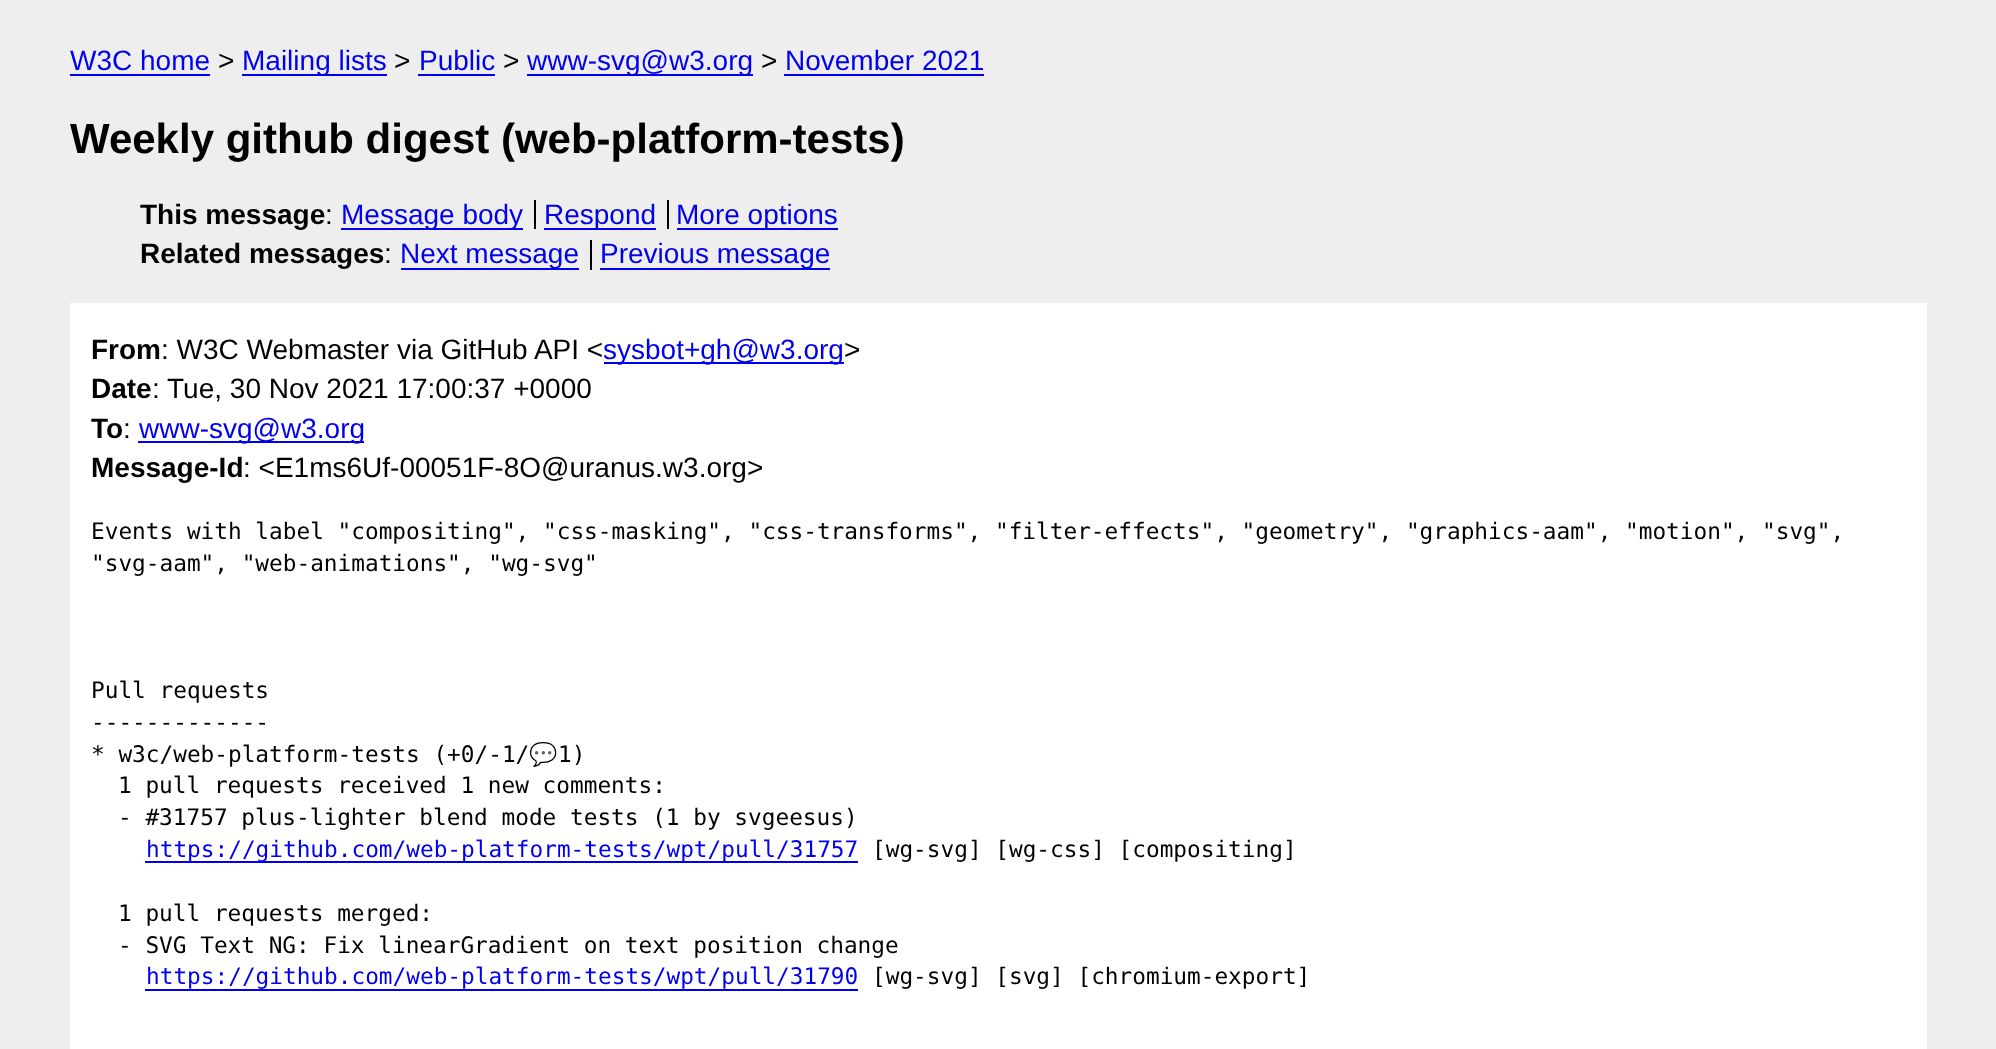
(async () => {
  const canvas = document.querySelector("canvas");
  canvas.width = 1996;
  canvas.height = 1049;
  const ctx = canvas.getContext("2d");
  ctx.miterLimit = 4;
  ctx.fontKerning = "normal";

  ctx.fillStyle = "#eeeeee";
  ctx.fillRect(0, 0, 1996, 1049);
  for (const [x, y, w, h, color] of [
    [70, 74, 140, 2, "#0000ee"],
    [242, 74, 145, 2, "#0000ee"],
    [418, 74, 77, 2, "#0000ee"],
    [527, 74, 226, 2, "#0000ee"],
    [784, 74, 200, 2, "#0000ee"],
    [341, 228, 182, 2, "#0000ee"],
    [534, 200, 2, 29, "#000000"],
    [544, 228, 112, 2, "#0000ee"],
    [667, 200, 2, 29, "#000000"],
    [677, 228, 161, 2, "#0000ee"],
    [401, 268, 178, 2, "#0000ee"],
    [590, 240, 2, 30, "#000000"],
    [600, 268, 230, 2, "#0000ee"],
    [70, 303, 1857, 746, "#ffffff"],
    [604, 362, 240, 2, "#0000ee"],
    [138, 441, 226, 2, "#0000ee"],
    [145, 861, 713, 2, "#0000ee"],
    [145, 989, 713, 2, "#0000ee"],
  ]) {
    ctx.fillStyle = color;
    ctx.fillRect(x, y, w, h);
  }
  ctx.font = "28px Liberation Sans";
  ctx.fillText("W3C home", 70, 70);
  ctx.fillStyle = "#000000";
  ctx.fillText(">", 218, 70);
  ctx.fillStyle = "#0000ee";
  ctx.fillText("Mailing lists", 242, 70);
  ctx.fillStyle = "#000000";
  ctx.fillText(">", 394, 70);
  ctx.fillStyle = "#0000ee";
  ctx.fillText("Public", 419, 70);
  ctx.fillStyle = "#000000";
  ctx.fillText(">", 503, 70);
  ctx.fillStyle = "#0000ee";
  ctx.fillText("www-svg@w3.org", 527, 70);
  ctx.fillStyle = "#000000";
  ctx.fillText(">", 761, 70);
  ctx.fillStyle = "#0000ee";
  ctx.fillText("November 2021", 785, 70);
  ctx.font = "bold 42px Liberation Sans";
  ctx.fillStyle = "#000000";
  ctx.fillText("Weekly github digest (web-platform-tests)", 70, 153);
  ctx.font = "bold 28px Liberation Sans";
  ctx.fillText("This message", 140, 224);
  ctx.font = "28px Liberation Sans";
  ctx.fillText(":", 325, 224);
  ctx.fillStyle = "#0000ee";
  for (const [text, x, y] of [
    ["Message body", 341, 224],
    ["Respond", 544, 224],
    ["More options", 676, 224],
  ]) {
    ctx.fillText(text, x, y);
  }
  ctx.font = "bold 28px Liberation Sans";
  ctx.fillStyle = "#000000";
  ctx.fillText("Related messages", 140, 263);
  ctx.font = "28px Liberation Sans";
  ctx.fillText(":", 384, 263);
  ctx.fillStyle = "#0000ee";
  ctx.fillText("Next message", 400, 263);
  ctx.fillText("Previous message", 600, 263);
  ctx.font = "bold 28px Liberation Sans";
  ctx.fillStyle = "#000000";
  ctx.fillText("From", 91, 359);
  ctx.font = "28px Liberation Sans";
  ctx.fillText(": W3C Webmaster via GitHub API <", 161, 359);
  ctx.fillStyle = "#0000ee";
  ctx.fillText("sysbot+gh@w3.org", 603, 359);
  ctx.fillStyle = "#000000";
  ctx.fillText(">", 844, 359);
  ctx.font = "bold 28px Liberation Sans";
  ctx.fillText("Date", 91, 398);
  ctx.font = "28px Liberation Sans";
  ctx.fillText(": Tue, 30 Nov 2021 17:00:37 +0000", 152, 398);
  ctx.font = "bold 28px Liberation Sans";
  ctx.fillText("To", 91, 438);
  ctx.font = "28px Liberation Sans";
  ctx.fillText(":", 123, 438);
  ctx.fillStyle = "#0000ee";
  ctx.fillText("www-svg@w3.org", 139, 438);
  ctx.font = "bold 28px Liberation Sans";
  ctx.fillStyle = "#000000";
  ctx.fillText("Message-Id", 91, 477);
  ctx.font = "28px Liberation Sans";
  ctx.fillText(": <E1ms6Uf-00051F-8O@uranus.w3.org>", 243, 477);
  ctx.font = "22.75px DejaVu Sans Mono";
  for (const [text, x, y] of [
    ["Events with label \"compositing\", \"css-masking\", \"css-transforms\", \"filter-effects\", \"geometry\", \"graphics-aam\", \"motion\", \"svg\",", 91, 539],
    ["\"svg-aam\", \"web-animations\", \"wg-svg\"", 91, 571],
    ["Pull requests", 91, 698],
    ["-------------", 91, 730],
    ["* w3c/web-platform-tests (+0/-1/", 91, 762],
  ]) {
    ctx.fillText(text, x, y);
  }
  ctx.font = "22.75px Noto Color Emoji";
  ctx.fillText("💬", 529, 762);
  ctx.font = "22.75px DejaVu Sans Mono";
  for (const [text, x, y] of [
    ["1)", 558, 762],
    ["1 pull requests received 1 new comments:", 118, 793],
    ["- #31757 plus-lighter blend mode tests (1 by svgeesus)", 118, 825],
  ]) {
    ctx.fillText(text, x, y);
  }
  ctx.fillStyle = "#0000ee";
  ctx.fillText("https://github.com/web-platform-tests/wpt/pull/31757", 146, 857);
  ctx.fillStyle = "#000000";
  for (const [text, x, y] of [
    ["[wg-svg] [wg-css] [compositing]", 872, 857],
    ["1 pull requests merged:", 118, 921],
    ["- SVG Text NG: Fix linearGradient on text position change", 118, 953],
  ]) {
    ctx.fillText(text, x, y);
  }
  ctx.fillStyle = "#0000ee";
  ctx.fillText("https://github.com/web-platform-tests/wpt/pull/31790", 146, 984);
  ctx.fillStyle = "#000000";
  ctx.fillText("[wg-svg] [svg] [chromium-export]", 872, 984);
})();
